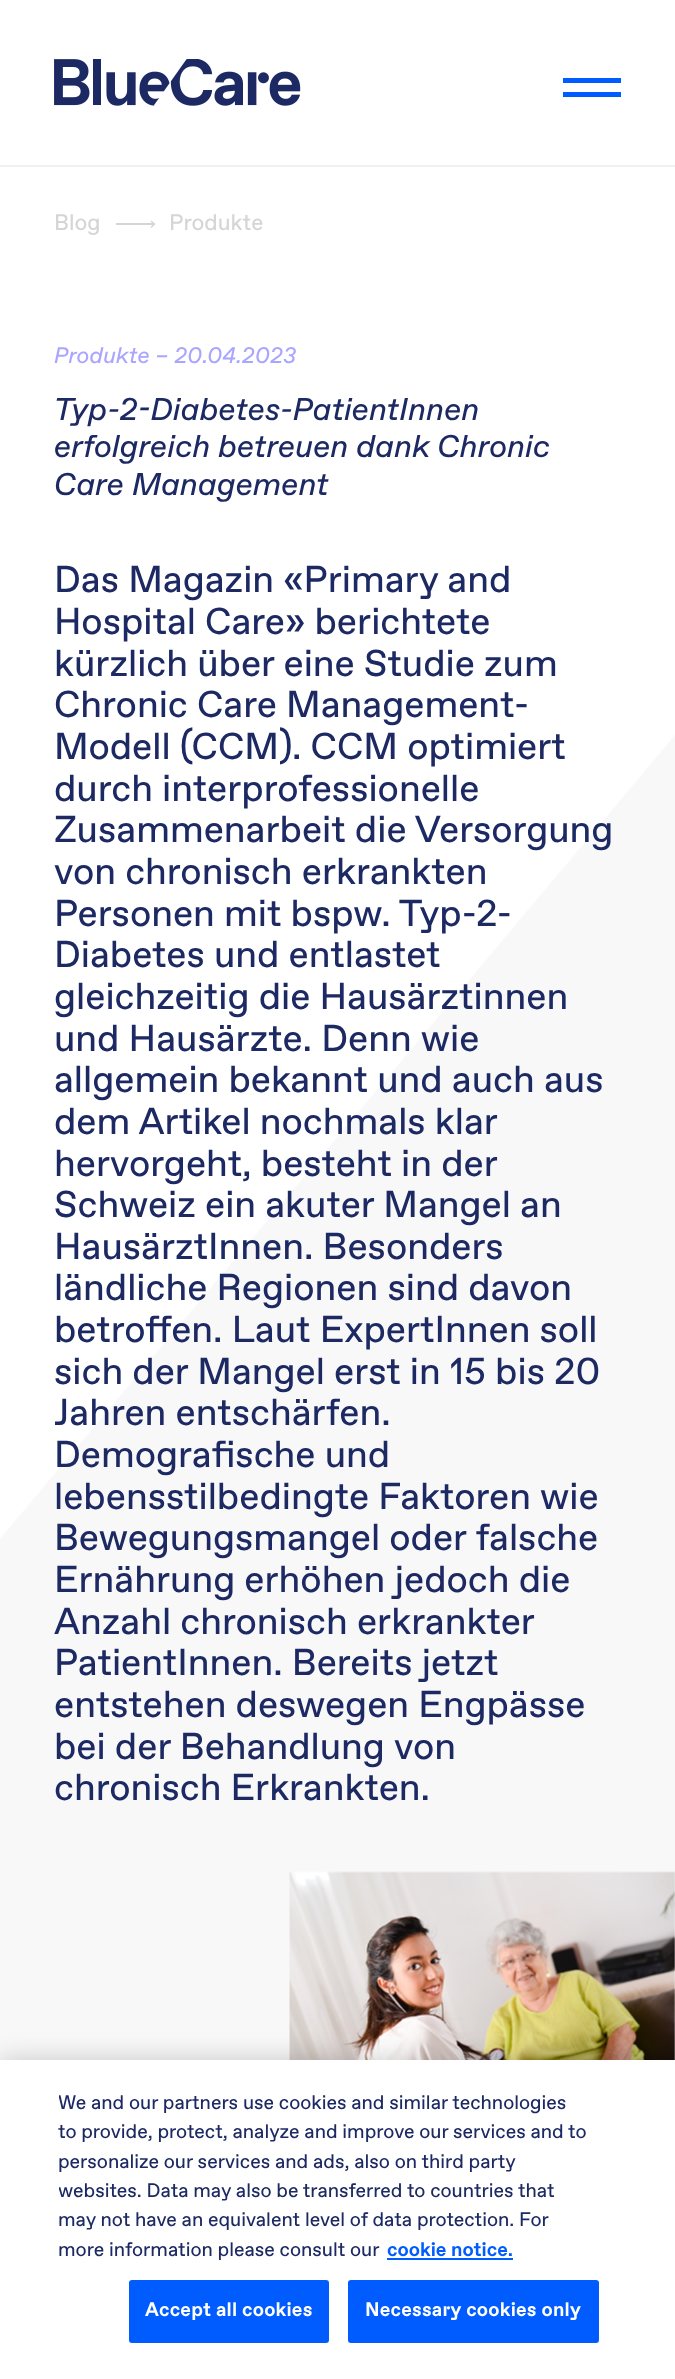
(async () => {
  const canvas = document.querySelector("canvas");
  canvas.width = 675;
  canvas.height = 2379;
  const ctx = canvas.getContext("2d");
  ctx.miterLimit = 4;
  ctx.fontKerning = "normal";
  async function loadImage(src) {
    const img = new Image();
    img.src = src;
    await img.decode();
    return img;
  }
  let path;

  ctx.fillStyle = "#ffffff";
  ctx.fillRect(0, 0, 675, 2379);
  ctx.fillStyle = "#f0f0f0";
  ctx.fillRect(0, 165, 675, 2);
  ctx.drawImage(await loadImage("img/1.png"), 54, 59, 247, 47);
  ctx.fillStyle = "#005cff";
  ctx.fillRect(563, 78, 58, 5);
  ctx.fillRect(563, 92, 58, 5);
  ctx.save();
  ctx.beginPath();
  ctx.rect(116, 219, 39, 9);
  ctx.clip();
  ctx.fillStyle = "#d5d5d5";
  path = new Path2D("M153 223H154V225H153ZM114 223H153V225H114Z");
  ctx.fill(path);
  ctx.restore();
  path = new Path2D("M151.5 221.5L154.5 224L151.5 227");
  ctx.strokeStyle = "#d5d5d5";
  ctx.lineWidth = 1.5;
  ctx.lineCap = "square";
  ctx.stroke(path);
  ctx.fillStyle = "#f8f8f8";
  ctx.fillRect(0, 735, 675, 1325);
  ctx.fillStyle = "#ffffff";
  path = new Path2D("M0 339V1539L675 735V339Z");
  ctx.fill(path);
  ctx.drawImage(await loadImage("img/2.png"), 289, 1871, 386, 189);
  ctx.fillStyle = "rgba(0, 0, 0, 0.2)";
  ctx.filter = "blur(13.5px)";
  ctx.beginPath();
  ctx.rect(0, 2060, 675, 319);
  ctx.fill();
  ctx.filter = "none";
  ctx.fillStyle = "#ffffff";
  ctx.fillRect(0, 2060, 675, 319);
  ctx.fillStyle = "#005cff";
  ctx.fillRect(387, 2258, 126, 2);
  ctx.beginPath();
  ctx.roundRect(130, 2281, 198, 61, 2);
  ctx.fill();
  ctx.strokeStyle = "#005cff";
  ctx.lineWidth = 2;
  ctx.stroke();
  ctx.beginPath();
  ctx.roundRect(349, 2281, 249, 61, 2);
  ctx.fill();
  ctx.stroke();
  ctx.font = "22.5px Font";
  ctx.fillStyle = "#d5d5d5";
  ctx.fillText("Blog", 54, 230);
  ctx.fillText("Produkte", 169, 230);
  ctx.font = "italic 22.5px Font";
  ctx.fillStyle = "#aaa6ff";
  ctx.fillText("Produkte – 20.04.2023", 54, 363);
  ctx.font = "italic 31.5px Font";
  ctx.fillStyle = "#1c2963";
  for (const [text, x, y] of [
    ["Typ-2-Diabetes-PatientInnen", 54, 420],
    ["erfolgreich betreuen dank Chronic", 54, 457],
    ["Care Management", 54, 495],
  ]) {
    ctx.fillText(text, x, y);
  }
  ctx.font = "37.5px Font";
  for (const [text, x, y] of [
    ["Das Magazin «Primary and", 54, 592],
    ["Hospital Care» berichtete", 54, 634],
    ["kürzlich über eine Studie zum", 54, 676],
    ["Chronic Care Management-", 54, 717],
    ["Modell (CCM). CCM optimiert", 54, 759],
    ["durch interprofessionelle", 54, 801],
    ["Zusammenarbeit die Versorgung", 54, 842],
    ["von chronisch erkrankten", 54, 884],
    ["Personen mit bspw. Typ-2-", 54, 926],
    ["Diabetes und entlastet", 54, 967],
    ["gleichzeitig die Hausärztinnen", 54, 1009],
    ["und Hausärzte. Denn wie", 54, 1051],
    ["allgemein bekannt und auch aus", 54, 1092],
    ["dem Artikel nochmals klar", 54, 1134],
    ["hervorgeht, besteht in der", 54, 1176],
    ["Schweiz ein akuter Mangel an", 54, 1217],
    ["HausärztInnen. Besonders", 54, 1259],
    ["ländliche Regionen sind davon", 54, 1300],
    ["betroffen. Laut ExpertInnen soll", 54, 1342],
    ["sich der Mangel erst in 15 bis 20", 54, 1384],
    ["Jahren entschärfen.", 54, 1425],
    ["Demografische und", 54, 1467],
    ["lebensstilbedingte Faktoren wie", 54, 1509],
    ["Bewegungsmangel oder falsche", 54, 1550],
    ["Ernährung erhöhen jedoch die", 54, 1592],
    ["Anzahl chronisch erkrankter", 54, 1634],
    ["PatientInnen. Bereits jetzt", 54, 1675],
    ["entstehen deswegen Engpässe", 54, 1717],
    ["bei der Behandlung von", 54, 1759],
    ["chronisch Erkrankten.", 54, 1800],
  ]) {
    ctx.fillText(text, x, y);
  }
  ctx.save();
  ctx.beginPath();
  ctx.rect(59, 2090, 528, 175);
  ctx.clip();
  ctx.font = "19.5px Font";
  ctx.fillText("We and our partners use cookies and similar technologies", 58, 2109);
  ctx.restore();
  ctx.font = "19.5px Font";
  ctx.fillText("to provide, protect, analyze and improve our services and to", 58, 2138);
  ctx.fillText("personalize our services and ads, also on third party", 58, 2168);
  ctx.save();
  ctx.beginPath();
  ctx.rect(59, 2090, 528, 175);
  ctx.clip();
  ctx.fillText("websites. Data may also be transferred to countries that", 58, 2197);
  ctx.restore();
  ctx.fillText("may not have an equivalent level of data protection. For", 58, 2226);
  ctx.fillText("more information please consult our", 58, 2256);
  ctx.font = "bold 19.5px Font";
  ctx.fillStyle = "#005cff";
  ctx.fillText("cookie notice.", 387, 2256);
  ctx.letterSpacing = "0.2px";
  ctx.fillStyle = "#ffffff";
  ctx.fillText("Accept all cookies", 145, 2316);
  ctx.fillText("Necessary cookies only", 365, 2316);
})();
